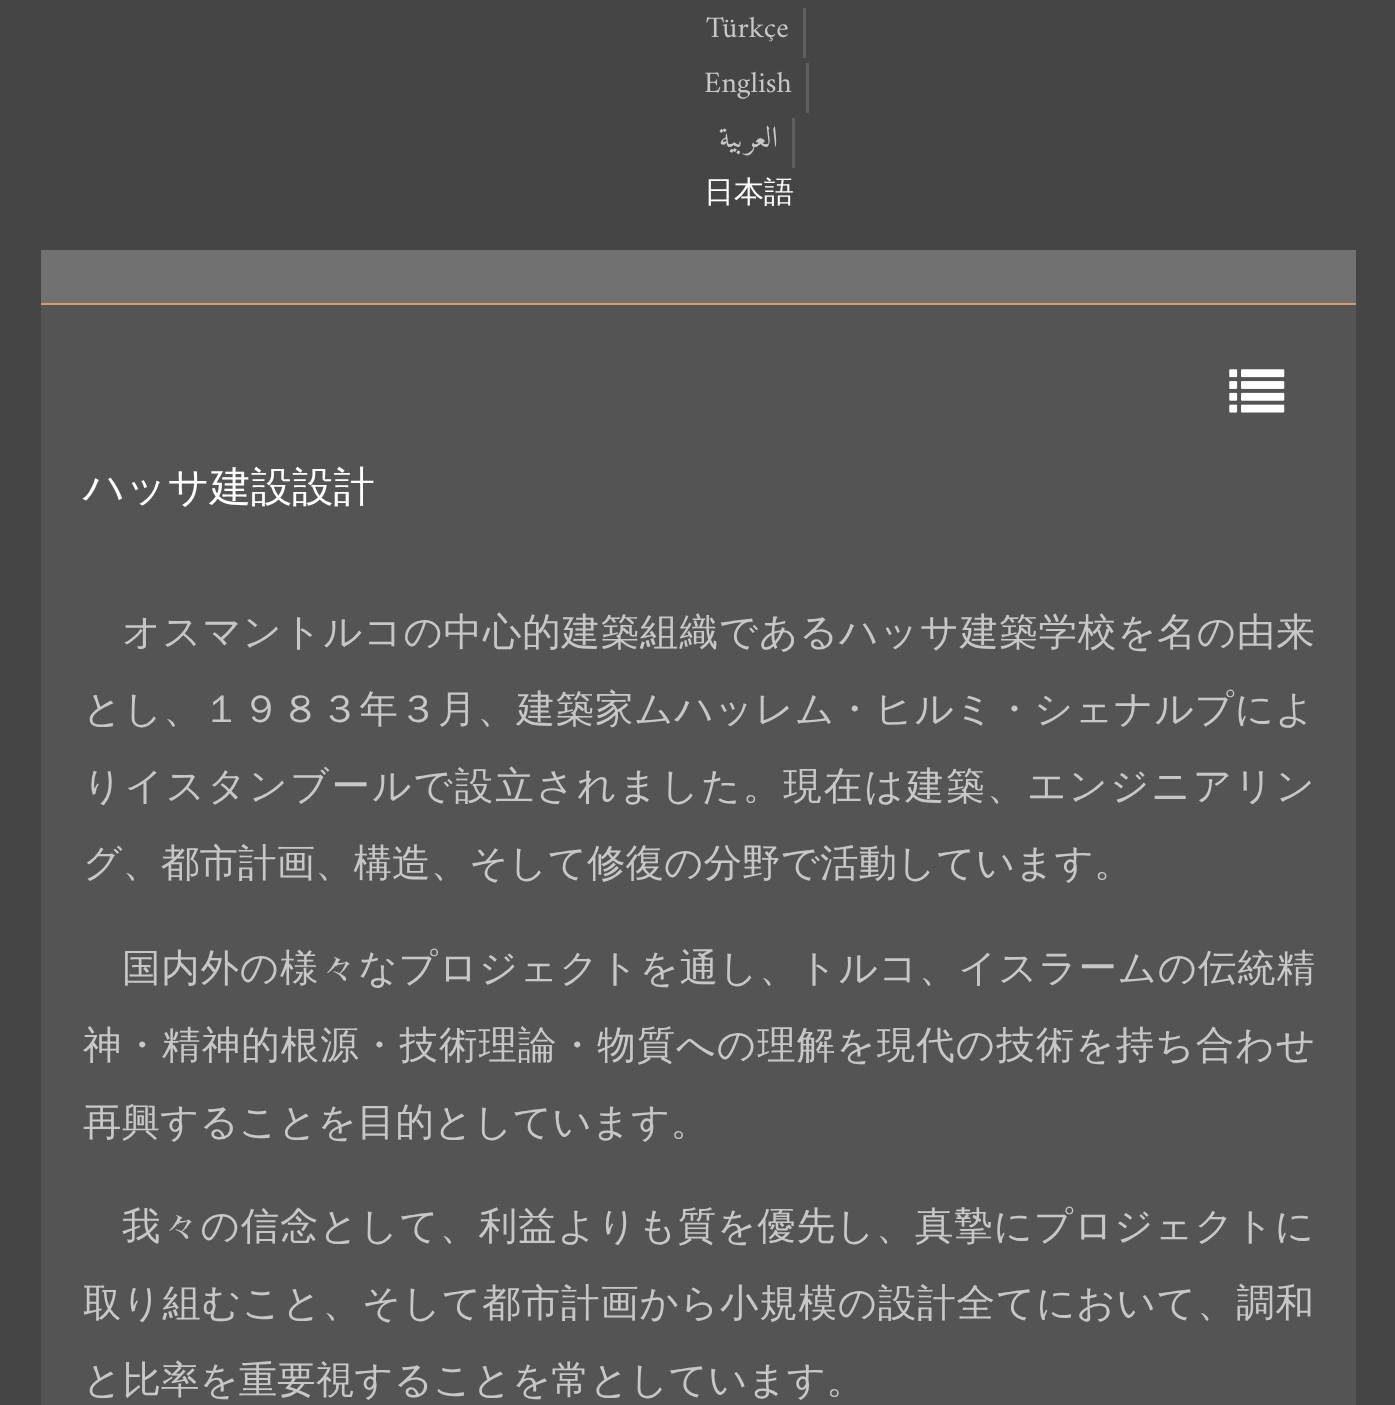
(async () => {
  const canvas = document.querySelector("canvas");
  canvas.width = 1395;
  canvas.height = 1405;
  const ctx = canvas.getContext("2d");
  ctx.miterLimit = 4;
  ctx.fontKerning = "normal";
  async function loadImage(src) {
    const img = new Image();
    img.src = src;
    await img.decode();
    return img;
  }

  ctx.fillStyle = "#454545";
  ctx.fillRect(0, 0, 1395, 1405);
  for (const [x, y, w, h, color] of [
    [803, 8, 3, 50, "#605f5d"],
    [806, 63, 3, 50, "#605f5d"],
    [792, 118, 3, 50, "#605f5d"],
    [41, 250, 1315, 53, "#717171"],
    [41, 303, 1315, 2, "#dc9671"],
    [41, 305, 1315, 1100, "#545454"],
  ]) {
    ctx.fillStyle = color;
    ctx.fillRect(x, y, w, h);
  }
  ctx.drawImage(await loadImage("img/1.png"), 1229, 369, 56, 44);
  ctx.font = "30px Amiri";
  ctx.fillStyle = "#c7c7c7";
  ctx.fillText("Türkçe", 706, 37);
  ctx.fillText("English", 704, 92);
  ctx.direction = "rtl";
  ctx.fillText("العربية", 778, 147);
  ctx.direction = "ltr";
  ctx.font = "500 30px WenQuanYi Zen Hei";
  ctx.fillStyle = "#ffffff";
  ctx.fillText("日本語", 704, 202);
  ctx.font = "500 41.25px WenQuanYi Zen Hei";
  ctx.fillText("ハッサ建設設計", 83, 501);
  ctx.letterSpacing = "0.8px";
  ctx.font = "500 38.5px WenQuanYi Zen Hei";
  ctx.fillStyle = "#c7c7c7";
  ctx.fillText("オスマントルコの中心的建築組織であるハッサ建築学校を名の由来", 122, 645);
  ctx.letterSpacing = "0.75px";
  ctx.fillText("とし、１９８３年３月、建築家ムハッレム・ヒルミ・シェナルプによ", 83, 722);
  ctx.letterSpacing = "2px";
  ctx.fillText("りイスタンブールで設立されました。現在は建築、エンジニアリン", 83, 799);
  ctx.letterSpacing = "0px";
  ctx.fillText("グ、都市計画、構造、そして修復の分野で活動しています。", 83, 876);
  ctx.letterSpacing = "0.75px";
  ctx.fillText("国内外の様々なプロジェクトを通し、トルコ、イスラームの伝統精", 122, 981);
  ctx.letterSpacing = "1.05px";
  ctx.fillText("神・精神的根源・技術理論・物質への理解を現代の技術を持ち合わせ", 83, 1058);
  ctx.letterSpacing = "0px";
  ctx.fillText("再興することを目的としています。", 83, 1135);
  ctx.letterSpacing = "0.75px";
  ctx.fillText("我々の信念として、利益よりも質を優先し、真摯にプロジェクトに", 122, 1239);
  ctx.letterSpacing = "0.8px";
  ctx.fillText("取り組むこと、そして都市計画から小規模の設計全てにおいて、調和", 83, 1316);
  ctx.letterSpacing = "0px";
  ctx.fillText("と比率を重要視することを常としています。", 83, 1393);
})();
